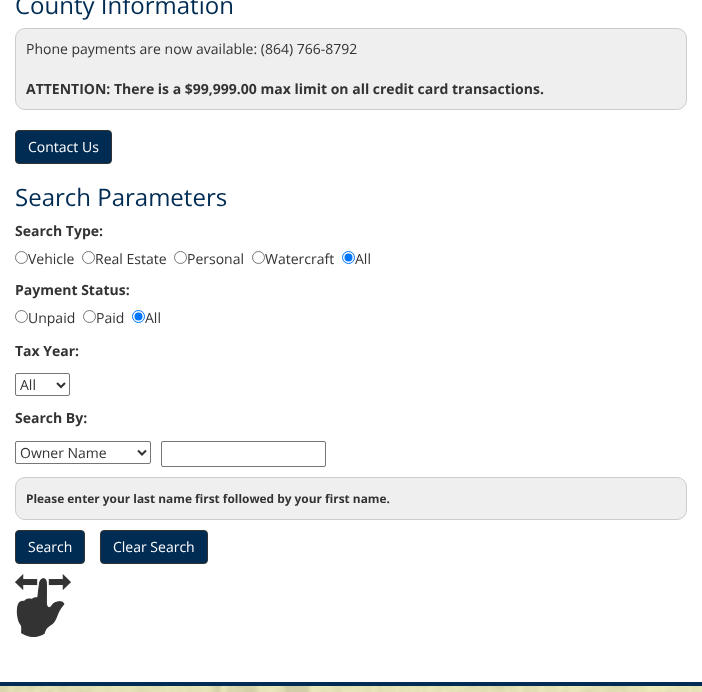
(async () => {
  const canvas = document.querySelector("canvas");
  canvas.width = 702;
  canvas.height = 692;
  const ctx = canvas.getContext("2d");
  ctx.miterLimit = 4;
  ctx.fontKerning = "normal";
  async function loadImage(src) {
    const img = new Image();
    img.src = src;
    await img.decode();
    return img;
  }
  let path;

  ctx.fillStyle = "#ffffff";
  ctx.fillRect(0, 0, 702, 692);
  ctx.drawImage(await loadImage("img/1.png"), 0, 686, 702, 6);
  ctx.fillStyle = "#efefef";
  ctx.beginPath();
  ctx.roundRect(15.5, 28.5, 671, 81, 9.5);
  ctx.fill();
  ctx.strokeStyle = "#cccccc";
  ctx.stroke();
  ctx.fillStyle = "#002c54";
  ctx.beginPath();
  ctx.roundRect(15.5, 130.5, 96, 33, 3.5);
  ctx.fill();
  ctx.strokeStyle = "#333333";
  ctx.stroke();
  ctx.beginPath();
  ctx.arc(21.5, 257.5, 6, 0, Math.PI * 2);
  ctx.strokeStyle = "#767676";
  ctx.stroke();
  ctx.beginPath();
  ctx.arc(88.5, 257.5, 6, 0, Math.PI * 2);
  ctx.stroke();
  ctx.beginPath();
  ctx.arc(180.5, 257.5, 6, 0, Math.PI * 2);
  ctx.stroke();
  ctx.beginPath();
  ctx.arc(258.5, 257.5, 6, 0, Math.PI * 2);
  ctx.stroke();
  ctx.beginPath();
  ctx.arc(348.5, 257.5, 6, 0, Math.PI * 2);
  ctx.strokeStyle = "#0075ff";
  ctx.stroke();
  ctx.fillStyle = "#0075ff";
  ctx.beginPath();
  ctx.arc(348.5, 257.5, 4, 0, Math.PI * 2);
  ctx.fill();
  ctx.beginPath();
  ctx.arc(21.5, 316.5, 6, 0, Math.PI * 2);
  ctx.strokeStyle = "#767676";
  ctx.stroke();
  ctx.beginPath();
  ctx.arc(89.5, 316.5, 6, 0, Math.PI * 2);
  ctx.stroke();
  ctx.beginPath();
  ctx.arc(138.5, 316.5, 6, 0, Math.PI * 2);
  ctx.strokeStyle = "#0075ff";
  ctx.stroke();
  ctx.beginPath();
  ctx.arc(138.5, 316.5, 4, 0, Math.PI * 2);
  ctx.fill();
  ctx.beginPath();
  ctx.roundRect(15.5, 373.5, 54, 22, 1.5);
  ctx.strokeStyle = "#767676";
  ctx.stroke();
  path = new Path2D("M57 383L61 387L65 383");
  ctx.strokeStyle = "#333333";
  ctx.lineWidth = 2;
  ctx.stroke(path);
  ctx.beginPath();
  ctx.roundRect(15.5, 441.5, 135, 22, 1.5);
  ctx.strokeStyle = "#767676";
  ctx.lineWidth = 1;
  ctx.stroke();
  path = new Path2D("M138 450.5L142 454.5L146 450.5");
  ctx.strokeStyle = "#333333";
  ctx.lineWidth = 2;
  ctx.stroke(path);
  ctx.beginPath();
  ctx.roundRect(161.5, 441.5, 164, 25, 1.5);
  ctx.strokeStyle = "#767676";
  ctx.lineWidth = 1;
  ctx.stroke();
  ctx.fillStyle = "#efefef";
  ctx.beginPath();
  ctx.roundRect(15.5, 477.5, 671, 42, 9.5);
  ctx.fill();
  ctx.strokeStyle = "#cccccc";
  ctx.stroke();
  ctx.fillStyle = "#002c54";
  ctx.beginPath();
  ctx.roundRect(15.5, 530.5, 69, 33, 3.5);
  ctx.fill();
  ctx.strokeStyle = "#333333";
  ctx.stroke();
  ctx.beginPath();
  ctx.roundRect(100.5, 530.5, 107, 33, 3.5);
  ctx.fill();
  ctx.stroke();
  ctx.drawImage(await loadImage("img/2.png"), 15, 574, 56, 63);
  ctx.fillRect(0, 682, 702, 4);
  ctx.font = "24px Open Sans";
  ctx.fillText("County Information", 15, 14);
  ctx.font = "14px Open Sans";
  ctx.fillStyle = "#333333";
  ctx.fillText("Phone payments are now available: (864) 766-8792", 26, 54);
  ctx.font = "bold 14px Open Sans";
  ctx.fillText("ATTENTION: There is a $99,999.00 max limit on all credit card transactions.", 26, 94);
  ctx.font = "14px Open Sans";
  ctx.fillStyle = "#ffffff";
  ctx.fillText("Contact Us", 28, 152);
  ctx.font = "24px Open Sans";
  ctx.fillStyle = "#002c54";
  ctx.fillText("Search Parameters", 15, 206);
  ctx.font = "bold 14px Open Sans";
  ctx.fillStyle = "#333333";
  ctx.fillText("Search Type:", 15, 236);
  ctx.font = "14px Open Sans";
  for (const [text, x, y] of [
    ["Vehicle", 28, 264],
    ["Real Estate", 95, 264],
    ["Personal", 187, 264],
    ["Watercraft", 265, 264],
    ["All", 355, 264],
  ]) {
    ctx.fillText(text, x, y);
  }
  ctx.font = "bold 14px Open Sans";
  ctx.fillText("Payment Status:", 15, 295);
  ctx.font = "14px Open Sans";
  for (const [text, x, y] of [
    ["Unpaid", 28, 323],
    ["Paid", 96, 323],
    ["All", 145, 323],
  ]) {
    ctx.fillText(text, x, y);
  }
  ctx.font = "bold 14px Open Sans";
  ctx.fillText("Tax Year:", 15, 356);
  ctx.font = "14px Open Sans";
  ctx.fillText("All", 20, 390);
  ctx.font = "bold 14px Open Sans";
  ctx.fillText("Search By:", 15, 423);
  ctx.font = "14px Open Sans";
  ctx.fillText("Owner Name", 20, 458);
  ctx.font = "bold 11.9px Open Sans";
  ctx.fillText("Please enter your last name first followed by your first name.", 26, 503);
  ctx.font = "14px Open Sans";
  ctx.fillStyle = "#ffffff";
  ctx.fillText("Search", 28, 552);
  ctx.fillText("Clear Search", 113, 552);
})();
